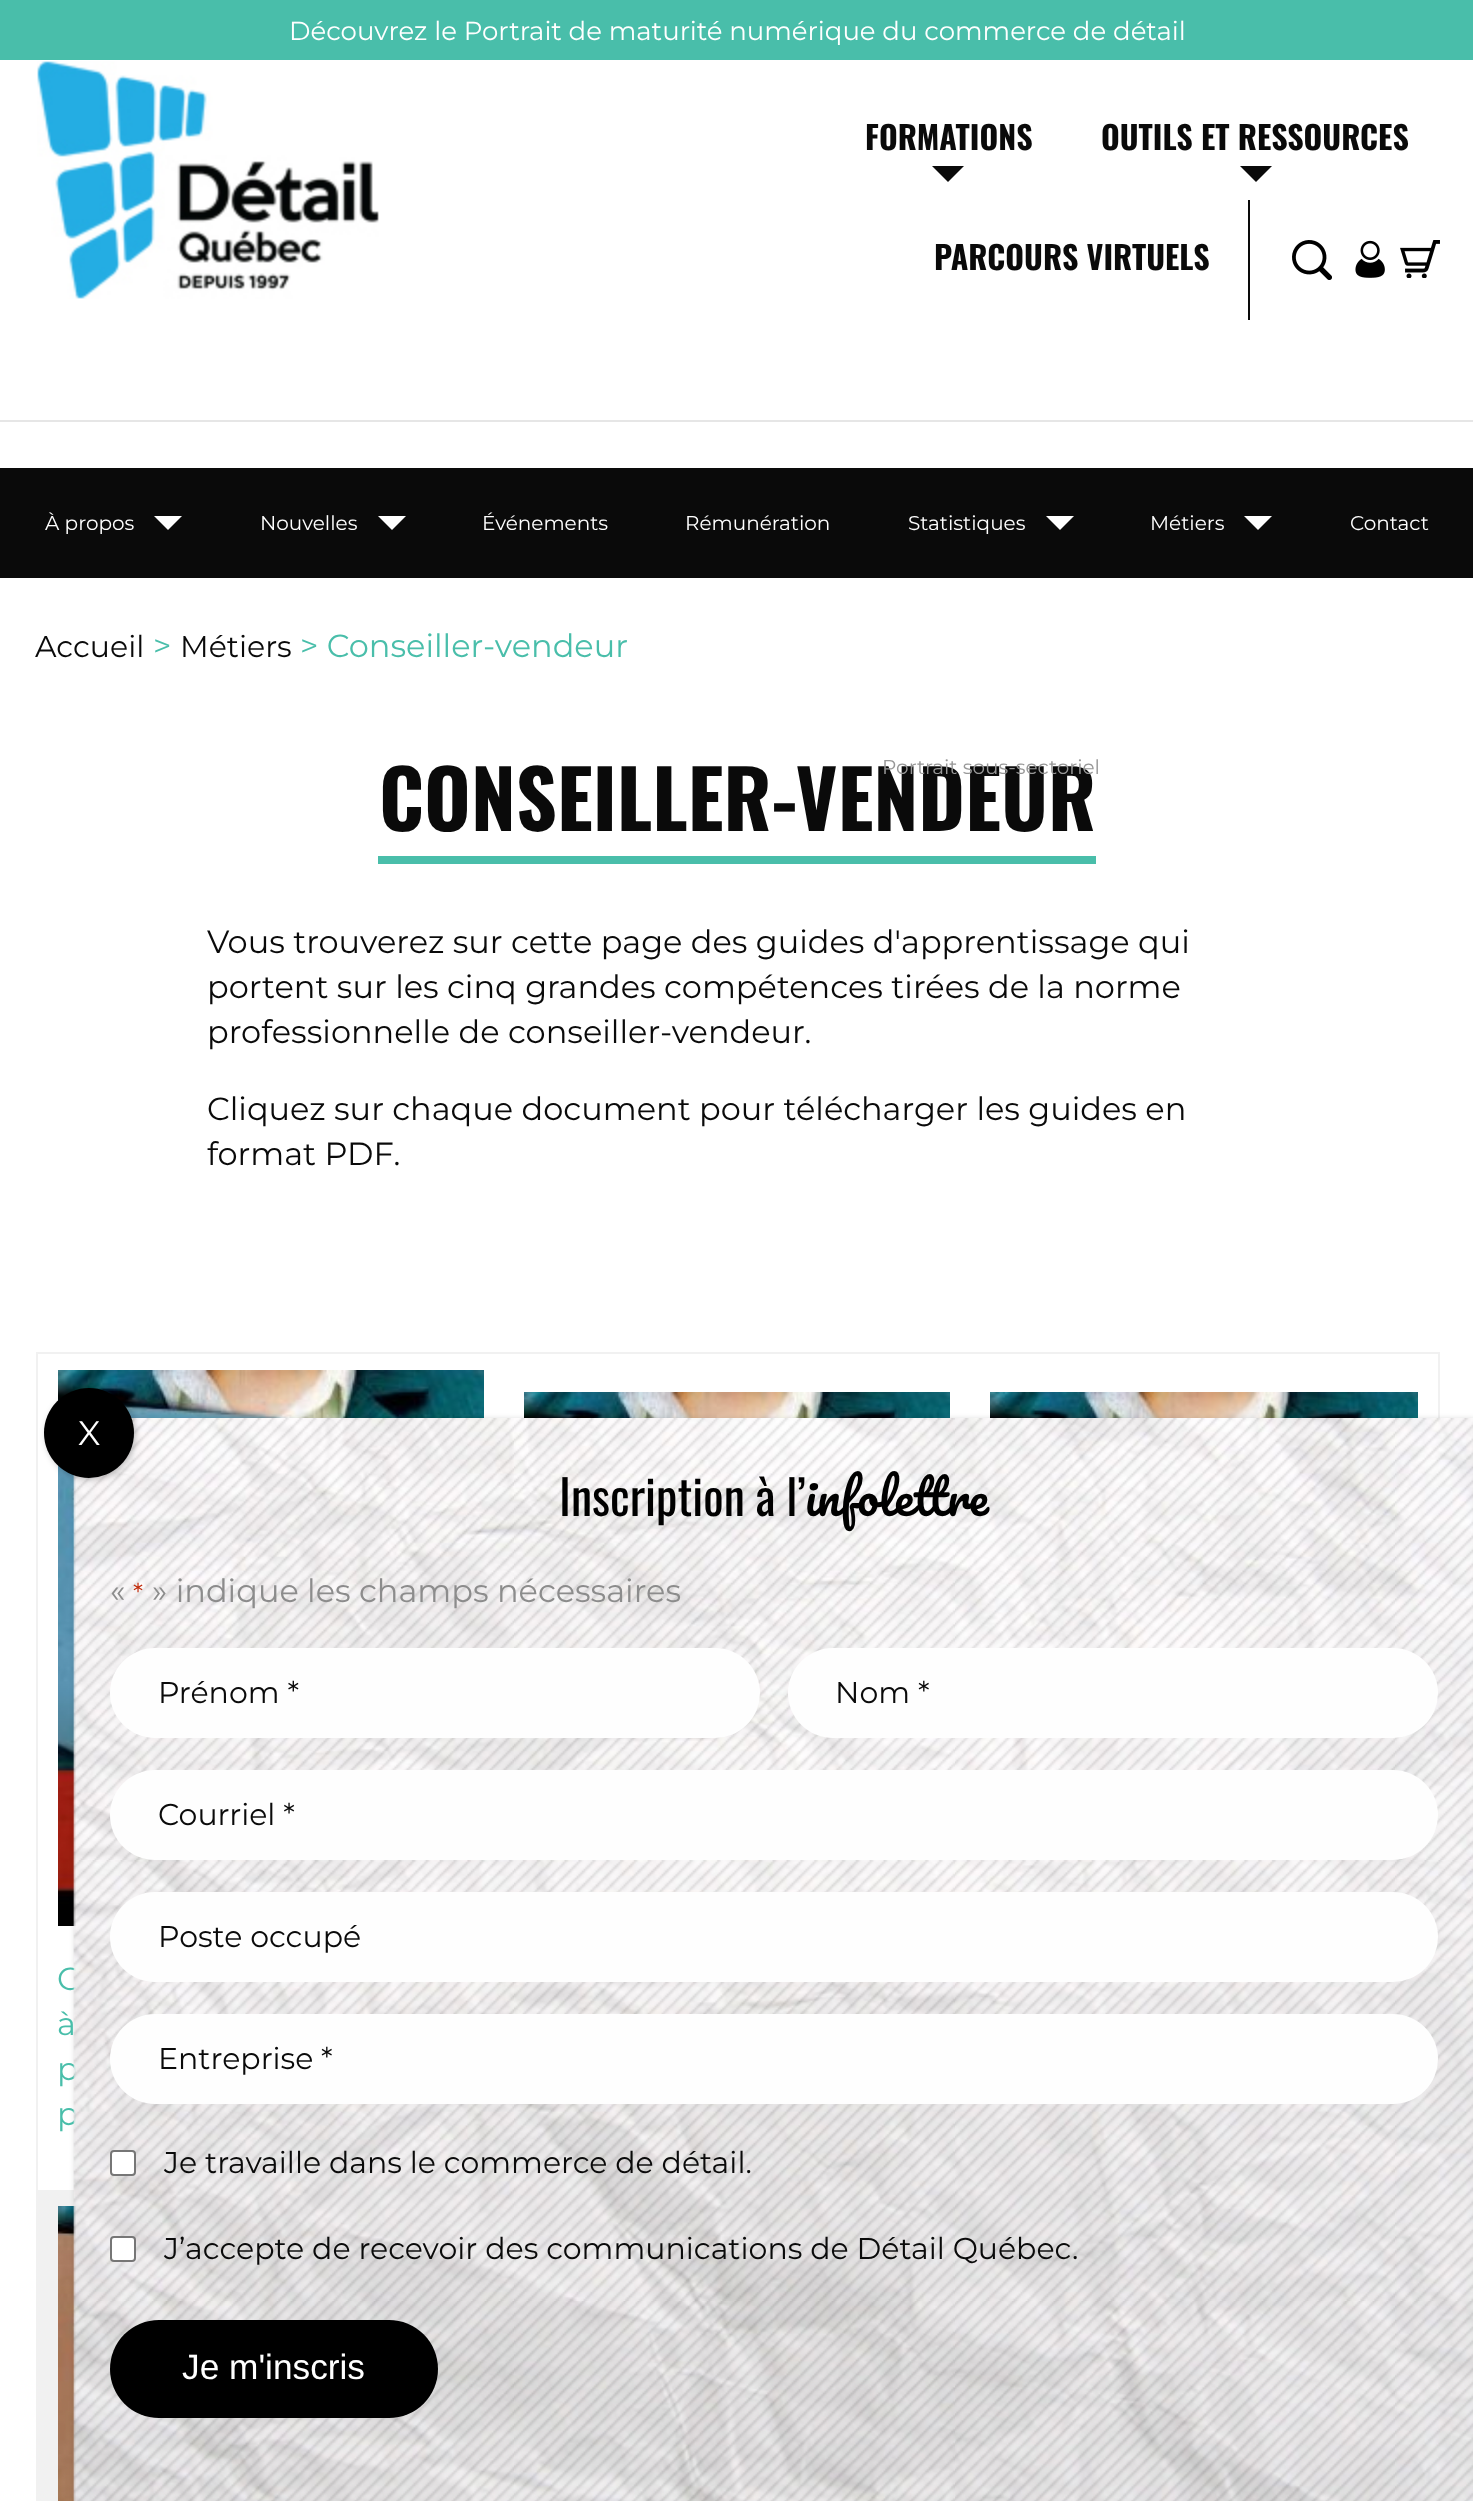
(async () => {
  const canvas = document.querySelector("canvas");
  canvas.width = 1473;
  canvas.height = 2501;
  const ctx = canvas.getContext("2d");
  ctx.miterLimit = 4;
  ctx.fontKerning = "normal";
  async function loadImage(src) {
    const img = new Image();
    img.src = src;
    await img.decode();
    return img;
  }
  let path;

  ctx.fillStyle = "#ffffff";
  ctx.fillRect(0, 0, 1473, 2501);
  ctx.fillStyle = "#e6e6e6";
  ctx.fillRect(0, 420, 1473, 2);
  ctx.fillStyle = "#49beaa";
  ctx.fillRect(0, 0, 1473, 60);
  ctx.drawImage(await loadImage("img/1.png"), 37, 61, 342, 238);
  ctx.fillStyle = "#0a0a0a";
  path = new Path2D("M932 166H964L948 182Z");
  ctx.fill(path);
  path = new Path2D("M1240 166H1272L1256 182Z");
  ctx.fill(path);
  ctx.fillRect(1248, 200, 2, 120);
  ctx.drawImage(await loadImage("img/2.png"), 1292, 240, 40, 40);
  ctx.drawImage(await loadImage("img/3.png"), 1355, 240, 30, 38);
  ctx.drawImage(await loadImage("img/4.png"), 1400, 240, 40, 38);
  ctx.fillRect(0, 468, 1473, 110);
  ctx.fillStyle = "#ffffff";
  path = new Path2D("M154 516H182L168 530Z");
  ctx.fill(path);
  path = new Path2D("M378 516H406L392 530Z");
  ctx.fill(path);
  path = new Path2D("M1046 516H1074L1060 530Z");
  ctx.fill(path);
  path = new Path2D("M1244 516H1272L1258 530Z");
  ctx.fill(path);
  for (const [x, y, w, h, color] of [
    [378, 856, 718, 8, "#49beaa"],
    [36, 1352, 1404, 2, "#f1f1f1"],
    [1438, 1352, 2, 66, "#f1f1f1"],
    [36, 1352, 2, 1149, "#f1f1f1"],
  ]) {
    ctx.fillStyle = color;
    ctx.fillRect(x, y, w, h);
  }
  ctx.drawImage(await loadImage("img/5.png"), 524, 1392, 426, 26);
  ctx.drawImage(await loadImage("img/6.png"), 990, 1392, 428, 26);
  ctx.drawImage(await loadImage("img/7.png"), 58, 1370, 426, 556);
  ctx.fillRect(38, 2190, 38, 311);
  ctx.drawImage(await loadImage("img/8.png"), 58, 2206, 18, 295);
  ctx.fillStyle = "rgba(2, 2, 2, 0.23)";
  ctx.filter = "blur(3px)";
  ctx.beginPath();
  ctx.rect(76, 1420, 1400, 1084);
  ctx.fill();
  ctx.filter = "none";
  ctx.font = "26px Montserrat";
  ctx.fillStyle = "#ffffff";
  ctx.fillText("Découvrez le Portrait de maturité numérique du commerce de détail", 289, 40);
  ctx.font = "bold 32px Oswald";
  ctx.fillStyle = "#0a0a0a";
  for (const [text, x, y] of [
    ["FORMATIONS", 865, 150],
    ["OUTILS ET RESSOURCES", 1101, 150],
    ["PARCOURS VIRTUELS", 934, 270],
  ]) {
    ctx.fillText(text, x, y);
  }
  ctx.font = "20px Montserrat";
  ctx.fillStyle = "#ffffff";
  for (const [text, x, y] of [
    ["À propos", 45, 530],
    ["Nouvelles", 260, 530],
    ["Événements", 482, 530],
    ["Rémunération", 685, 530],
    ["Statistiques", 908, 530],
    ["Métiers", 1150, 530],
    ["Contact", 1350, 530],
  ]) {
    ctx.fillText(text, x, y);
  }
  ctx.font = "30px Montserrat";
  ctx.fillStyle = "#0a0a0a";
  ctx.fillText("Accueil", 35, 657);
  ctx.font = "32px Montserrat";
  ctx.fillStyle = "#49beaa";
  ctx.fillText(">", 153, 657);
  ctx.font = "30px Montserrat";
  ctx.fillStyle = "#0a0a0a";
  ctx.fillText("Métiers", 180, 657);
  ctx.font = "32px Montserrat";
  ctx.fillStyle = "#49beaa";
  ctx.fillText("> Conseiller-vendeur", 300, 657);
  ctx.font = "bold 80px Oswald";
  ctx.fillStyle = "#0a0a0a";
  ctx.fillText("CONSEILLER-VENDEUR", 379, 831);
  ctx.font = "20px Montserrat";
  ctx.fillStyle = "#979797";
  ctx.fillText("Portrait sous-sectoriel", 882, 774);
  ctx.font = "32px Montserrat";
  ctx.fillStyle = "#0a0a0a";
  for (const [text, x, y] of [
    ["Vous trouverez sur cette page des guides d'apprentissage qui", 207, 953],
    ["portent sur les cinq grandes compétences tirées de la norme", 207, 998],
    ["professionnelle de conseiller-vendeur.", 207, 1043],
    ["Cliquez sur chaque document pour télécharger les guides en", 207, 1120],
    ["format PDF.", 207, 1165],
  ]) {
    ctx.fillText(text, x, y);
  }
  ctx.fillStyle = "#49beaa";
  for (const [text, x, y] of [
    ["C", 57, 1990],
    ["à", 57, 2035],
    ["p", 57, 2080],
    ["p", 57, 2125],
  ]) {
    ctx.fillText(text, x, y);
  }
  ctx.drawImage(await loadImage("img/9.png"), 73, 1418, 1400, 1083);
  ctx.fillStyle = "rgba(2, 2, 2, 0.23)";
  ctx.filter = "blur(3px)";
  ctx.beginPath();
  ctx.roundRect(46, 1390, 90, 90, 45);
  ctx.fill();
  ctx.filter = "none";
  ctx.fillStyle = "#000000";
  ctx.beginPath();
  ctx.arc(89, 1433, 45, 0, Math.PI * 2);
  ctx.fill();
  ctx.font = "34px Montserrat";
  ctx.fillStyle = "#ffffff";
  ctx.fillText("X", 78, 1445);
  ctx.font = "48px Oswald";
  ctx.fillStyle = "#000000";
  ctx.fillText("Inscription à l’", 559, 1516);
  ctx.font = "48px Pacifico";
  ctx.fillText("infolettre", 805, 1516);
  ctx.font = "32px Montserrat";
  ctx.fillStyle = "#8c8c8c";
  ctx.fillText("«", 110, 1602);
  ctx.font = "26px Montserrat";
  ctx.fillStyle = "#c02b0a";
  ctx.fillText("*", 133, 1602);
  ctx.font = "32px Montserrat";
  ctx.fillStyle = "#8c8c8c";
  ctx.fillText("» indique les champs nécessaires", 152, 1602);
  ctx.fillStyle = "#fefefe";
  ctx.beginPath();
  ctx.roundRect(110, 1648, 650, 90, 45);
  ctx.fill();
  ctx.font = "30px Montserrat";
  ctx.fillStyle = "#0a0a0a";
  ctx.fillText("Prénom *", 158, 1703);
  ctx.fillStyle = "#fefefe";
  ctx.beginPath();
  ctx.roundRect(788, 1648, 650, 90, 45);
  ctx.fill();
  ctx.fillStyle = "#0a0a0a";
  ctx.fillText("Nom *", 835, 1703);
  ctx.fillStyle = "#fefefe";
  ctx.beginPath();
  ctx.roundRect(110, 1770, 1328, 90, 45);
  ctx.fill();
  ctx.fillStyle = "#0a0a0a";
  ctx.fillText("Courriel *", 158, 1825);
  ctx.fillStyle = "#fefefe";
  ctx.beginPath();
  ctx.roundRect(110, 1892, 1328, 90, 45);
  ctx.fill();
  ctx.fillStyle = "#0a0a0a";
  ctx.fillText("Poste occupé", 158, 1947);
  ctx.fillStyle = "#fefefe";
  ctx.beginPath();
  ctx.roundRect(110, 2014, 1328, 90, 45);
  ctx.fill();
  ctx.fillStyle = "#0a0a0a";
  ctx.fillText("Entreprise *", 158, 2069);
  ctx.fillStyle = "#ffffff";
  ctx.beginPath();
  ctx.roundRect(111, 2151, 24, 24, 3);
  ctx.fill();
  ctx.strokeStyle = "#767676";
  ctx.lineWidth = 2;
  ctx.stroke();
  ctx.fillStyle = "#0a0a0a";
  ctx.fillText("Je travaille dans le commerce de détail.", 164, 2173);
  ctx.fillStyle = "#ffffff";
  ctx.beginPath();
  ctx.roundRect(111, 2237, 24, 24, 3);
  ctx.fill();
  ctx.stroke();
  ctx.fillStyle = "#0a0a0a";
  ctx.fillText("J’accepte de recevoir des communications de Détail Québec.", 164, 2259);
  ctx.fillStyle = "#000000";
  ctx.beginPath();
  ctx.roundRect(110, 2320, 328, 98, 49);
  ctx.fill();
  ctx.font = "35.25px Liberation Sans";
  ctx.fillStyle = "#ffffff";
  ctx.fillText("Je m'inscris", 182, 2379);
})();
